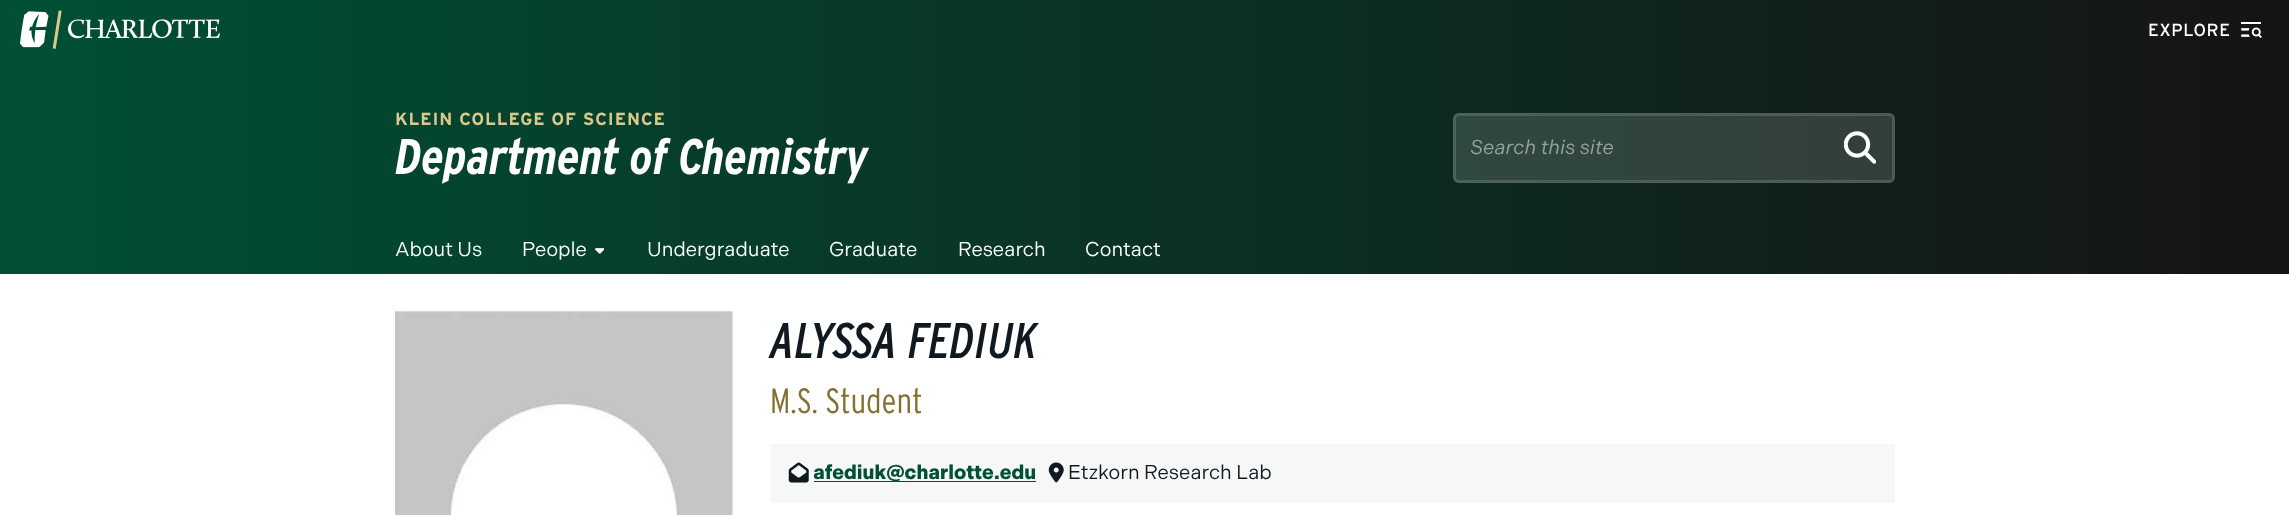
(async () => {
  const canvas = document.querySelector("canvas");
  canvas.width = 2289;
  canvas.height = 515;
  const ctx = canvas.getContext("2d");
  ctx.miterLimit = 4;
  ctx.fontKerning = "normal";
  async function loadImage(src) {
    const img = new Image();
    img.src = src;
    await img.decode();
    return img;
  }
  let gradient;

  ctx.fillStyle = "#ffffff";
  ctx.fillRect(0, 0, 2289, 515);
  gradient = ctx.createLinearGradient(0, 137, 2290, 137);
  gradient.addColorStop(0, "#005035");
  gradient.addColorStop(1, "#151414");
  ctx.fillStyle = gradient;
  ctx.fillRect(0, 0, 2289, 274);
  ctx.drawImage(await loadImage("img/1.png"), 20, 10, 200, 39);
  ctx.drawImage(await loadImage("img/2.png"), 2241, 22, 21, 16);
  ctx.fillStyle = "rgba(242, 246, 245, 0.15)";
  ctx.beginPath();
  ctx.roundRect(1453, 113, 442, 70, 6);
  ctx.fill();
  ctx.beginPath();
  ctx.roundRect(1454.5, 114.5, 439, 67, 4.5);
  ctx.strokeStyle = "rgba(242, 246, 245, 0.15)";
  ctx.lineWidth = 3;
  ctx.stroke();
  ctx.drawImage(await loadImage("img/3.png"), 1844, 131, 32, 33);
  ctx.drawImage(await loadImage("img/4.png"), 595, 248, 9, 6);
  ctx.drawImage(await loadImage("img/5.png"), 395, 311, 338, 204);
  ctx.fillStyle = "#f6f7f7";
  ctx.fillRect(770, 444, 1125, 59);
  ctx.drawImage(await loadImage("img/6.png"), 788, 462, 21, 21);
  ctx.fillStyle = "#005035";
  ctx.fillRect(814, 481, 222, 1);
  ctx.drawImage(await loadImage("img/7.png"), 1048, 462, 16, 21);
  ctx.letterSpacing = "0.5px";
  ctx.font = "17.5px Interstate";
  ctx.fillStyle = "#ffffff";
  ctx.fillText("EXPLORE", 2148, 36);
  ctx.letterSpacing = "0.9px";
  ctx.font = "bold 17.5px Interstate";
  ctx.fillStyle = "#dac98a";
  ctx.fillText("KLEIN COLLEGE OF SCIENCE", 395, 125);
  ctx.letterSpacing = "0px";
  ctx.font = "italic bold 50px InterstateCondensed";
  ctx.fillStyle = "#ffffff";
  ctx.fillText("Department of Chemistry", 395, 174);
  ctx.font = "italic 20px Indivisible";
  ctx.fillStyle = "#98a39f";
  ctx.fillText("Search this site", 1470, 154);
  ctx.font = "20px Indivisible";
  ctx.fillStyle = "#ffffff";
  for (const [text, x, y] of [
    ["About Us", 395, 256],
    ["People", 522, 256],
    ["Undergraduate", 647, 256],
    ["Graduate", 829, 256],
    ["Research", 958, 256],
    ["Contact", 1085, 256],
  ]) {
    ctx.fillText(text, x, y);
  }
  ctx.font = "italic 50px InterstateCondensed";
  ctx.fillStyle = "#101820";
  ctx.fillText("ALYSSA FEDIUK", 770, 358);
  ctx.font = "300 35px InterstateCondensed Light";
  ctx.fillStyle = "#837032";
  ctx.fillText("M.S. Student", 770, 413);
  ctx.font = "bold 20px Indivisible";
  ctx.fillStyle = "#005035";
  ctx.fillText("afediuk@charlotte.edu", 813, 479);
  ctx.font = "20px Indivisible";
  ctx.fillStyle = "#101820";
  ctx.fillText("Etzkorn Research Lab", 1068, 479);
})();
